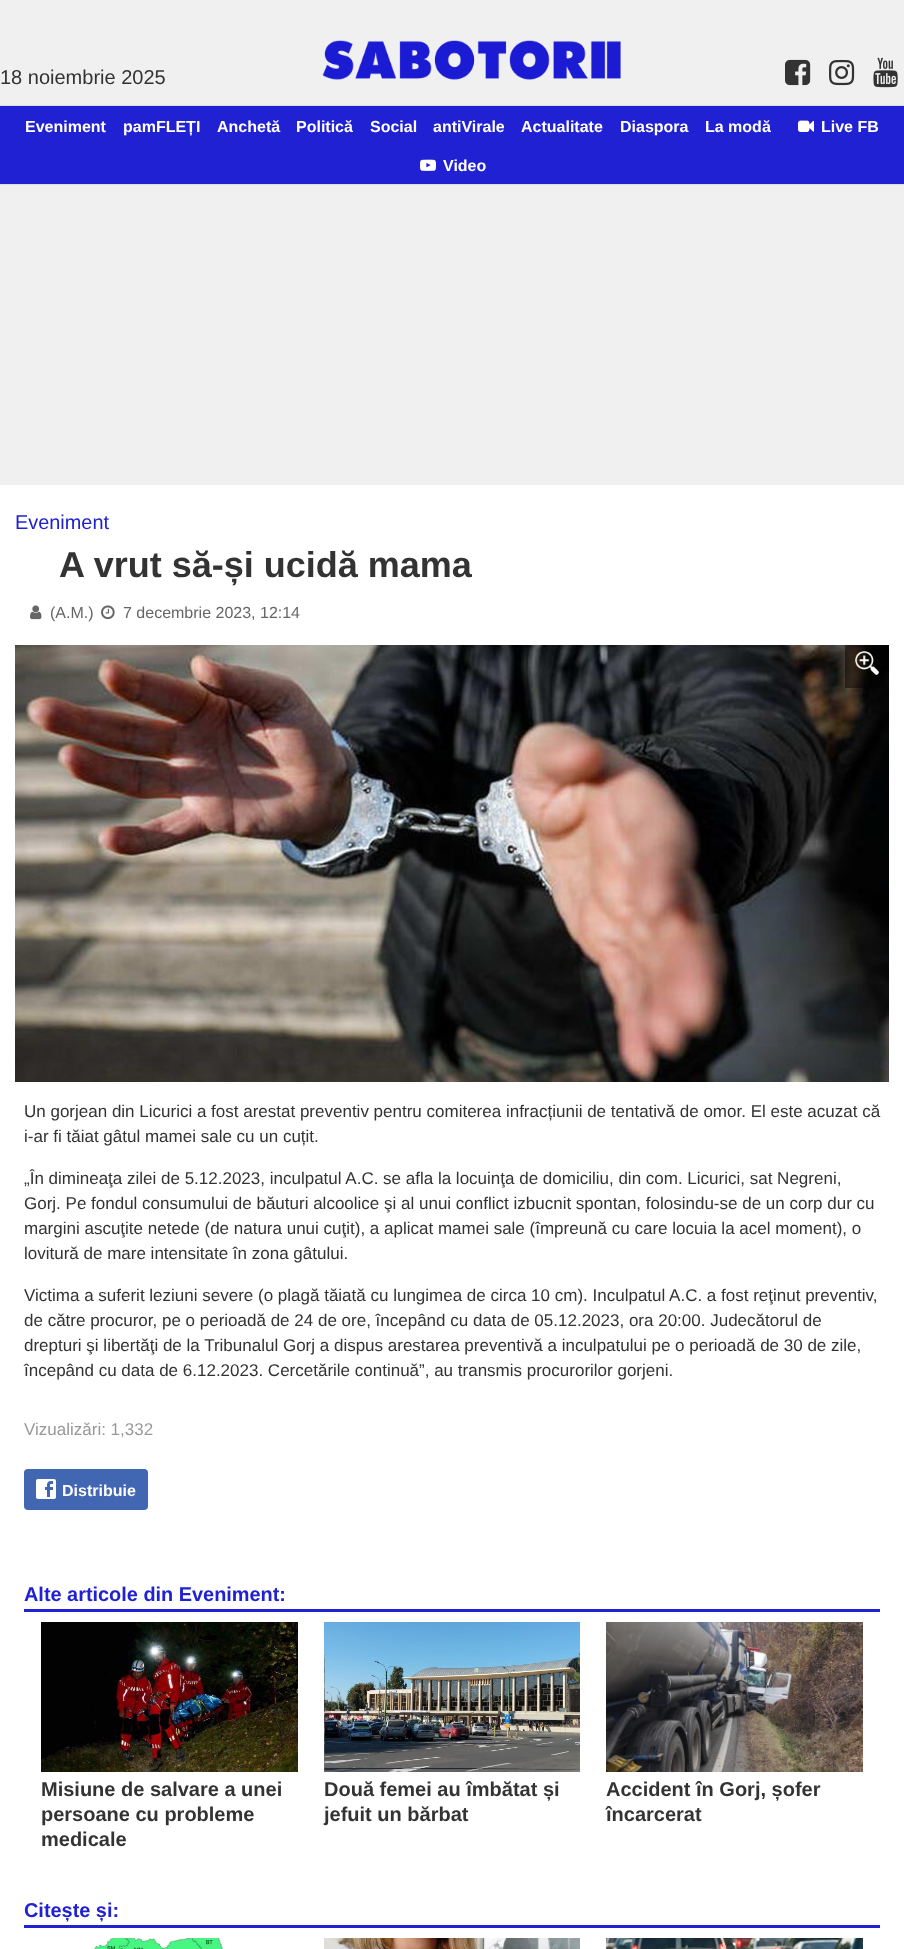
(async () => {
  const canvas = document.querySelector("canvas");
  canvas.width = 904;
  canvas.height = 1949;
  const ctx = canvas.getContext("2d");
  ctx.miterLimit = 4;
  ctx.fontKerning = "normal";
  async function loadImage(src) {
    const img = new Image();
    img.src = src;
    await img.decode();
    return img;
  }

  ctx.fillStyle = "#f0f0f0";
  ctx.fillRect(0, 0, 904, 1949);
  ctx.drawImage(await loadImage("img/1.png"), 322, 40, 299, 40);
  ctx.drawImage(await loadImage("img/2.png"), 785, 59, 26, 27);
  ctx.drawImage(await loadImage("img/3.png"), 829, 59, 26, 27);
  ctx.drawImage(await loadImage("img/4.png"), 873, 57, 25, 31);
  for (const [x, y, w, h, color] of [
    [0, 106, 904, 78, "#2021d2"],
    [0, 105, 904, 1, "#dddddd"],
    [0, 184, 904, 1, "#dddddd"],
  ]) {
    ctx.fillStyle = color;
    ctx.fillRect(x, y, w, h);
  }
  ctx.drawImage(await loadImage("img/5.png"), 798, 120, 16, 12);
  ctx.drawImage(await loadImage("img/6.png"), 420, 159, 16, 12);
  ctx.fillStyle = "#ffffff";
  ctx.fillRect(0, 485, 904, 1464);
  ctx.drawImage(await loadImage("img/7.png"), 30, 605, 12, 15);
  ctx.drawImage(await loadImage("img/8.png"), 101, 605, 14, 15);
  ctx.drawImage(await loadImage("img/9.png"), 15, 645, 874, 437);
  ctx.fillStyle = "rgba(0, 0, 0, 0.5)";
  ctx.fillRect(845, 645, 44, 43);
  ctx.drawImage(await loadImage("img/10.png"), 855, 651, 24, 24);
  ctx.fillStyle = "#4267b2";
  ctx.beginPath();
  ctx.roundRect(24, 1469, 124, 41, 4);
  ctx.fill();
  ctx.drawImage(await loadImage("img/11.png"), 36, 1479, 20, 20);
  ctx.fillStyle = "#2021d2";
  ctx.fillRect(24, 1609, 856, 3);
  ctx.drawImage(await loadImage("img/12.png"), 41, 1622, 257, 150);
  ctx.drawImage(await loadImage("img/13.png"), 324, 1622, 256, 150);
  ctx.drawImage(await loadImage("img/14.png"), 606, 1622, 257, 150);
  ctx.fillRect(24, 1925, 856, 3);
  ctx.drawImage(await loadImage("img/15.png"), 92, 1938, 132, 11);
  ctx.drawImage(await loadImage("img/16.png"), 324, 1938, 256, 11);
  ctx.drawImage(await loadImage("img/17.png"), 606, 1938, 257, 11);
  ctx.font = "20px Liberation Sans";
  ctx.fillStyle = "#333333";
  ctx.fillText("18 noiembrie 2025", 0, 84);
  ctx.font = "bold 16px Liberation Sans";
  ctx.fillStyle = "#ffffff";
  for (const [text, x, y] of [
    ["Eveniment", 25, 132],
    ["pamFLEȚI", 123, 132],
    ["Anchetă", 217, 132],
    ["Politică", 296, 132],
    ["Social", 370, 132],
    ["antiVirale", 433, 132],
    ["Actualitate", 521, 132],
    ["Diaspora", 620, 132],
    ["La modă", 705, 132],
    ["Live FB", 821, 132],
    ["Video", 443, 171],
  ]) {
    ctx.fillText(text, x, y);
  }
  ctx.font = "19.9px Liberation Sans";
  ctx.fillStyle = "#2021d2";
  ctx.fillText("Eveniment", 15, 529);
  ctx.font = "bold 36px Liberation Sans";
  ctx.fillStyle = "#333333";
  ctx.fillText("A vrut să-și ucidă mama", 59, 577);
  ctx.font = "16px Liberation Sans";
  ctx.fillStyle = "#666666";
  ctx.fillText("(A.M.)", 50, 618);
  ctx.fillText("7 decembrie 2023, 12:14", 123, 618);
  ctx.font = "17px Liberation Sans";
  ctx.fillStyle = "#333333";
  for (const [text, x, y] of [
    ["Un gorjean din Licurici a fost arestat preventiv pentru comiterea infracțiunii de tentativă de omor. El este acuzat că", 24, 1117],
    ["i-ar fi tăiat gâtul mamei sale cu un cuțit.", 24, 1142],
    ["„În dimineaţa zilei de 5.12.2023, inculpatul A.C. se afla la locuinţa de domiciliu, din com. Licurici, sat Negreni,", 24, 1184],
    ["Gorj. Pe fondul consumului de băuturi alcoolice şi al unui conflict izbucnit spontan, folosindu-se de un corp dur cu", 24, 1209],
    ["margini ascuţite netede (de natura unui cuţit), a aplicat mamei sale (împreună cu care locuia la acel moment), o", 24, 1234],
    ["lovitură de mare intensitate în zona gâtului.", 24, 1259],
    ["Victima a suferit leziuni severe (o plagă tăiată cu lungimea de circa 10 cm). Inculpatul A.C. a fost reţinut preventiv,", 24, 1301],
    ["de către procuror, pe o perioadă de 24 de ore, începând cu data de 05.12.2023, ora 20:00. Judecătorul de", 24, 1326],
    ["drepturi şi libertăţi de la Tribunalul Gorj a dispus arestarea preventivă a inculpatului pe o perioadă de 30 de zile,", 24, 1351],
    ["începând cu data de 6.12.2023. Cercetările continuă”, au transmis procurorilor gorjeni.", 24, 1376],
  ]) {
    ctx.fillText(text, x, y);
  }
  ctx.fillStyle = "#999999";
  ctx.fillText("Vizualizări: 1,332", 24, 1435);
  ctx.font = "bold 16px Liberation Sans";
  ctx.fillStyle = "#ffffff";
  ctx.fillText("Distribuie", 62, 1496);
  ctx.font = "bold 19.9px Liberation Sans";
  ctx.fillStyle = "#2021d2";
  ctx.fillText("Alte articole din Eveniment:", 24, 1601);
  ctx.font = "bold 20px Liberation Sans";
  ctx.fillStyle = "#333333";
  for (const [text, x, y] of [
    ["Misiune de salvare a unei", 41, 1796],
    ["persoane cu probleme", 41, 1821],
    ["medicale", 41, 1846],
    ["Două femei au îmbătat și", 324, 1796],
    ["jefuit un bărbat", 324, 1821],
    ["Accident în Gorj, șofer", 606, 1796],
    ["încarcerat", 606, 1821],
  ]) {
    ctx.fillText(text, x, y);
  }
  ctx.font = "bold 19.9px Liberation Sans";
  ctx.fillStyle = "#2021d2";
  ctx.fillText("Citește și:", 24, 1917);
})();
